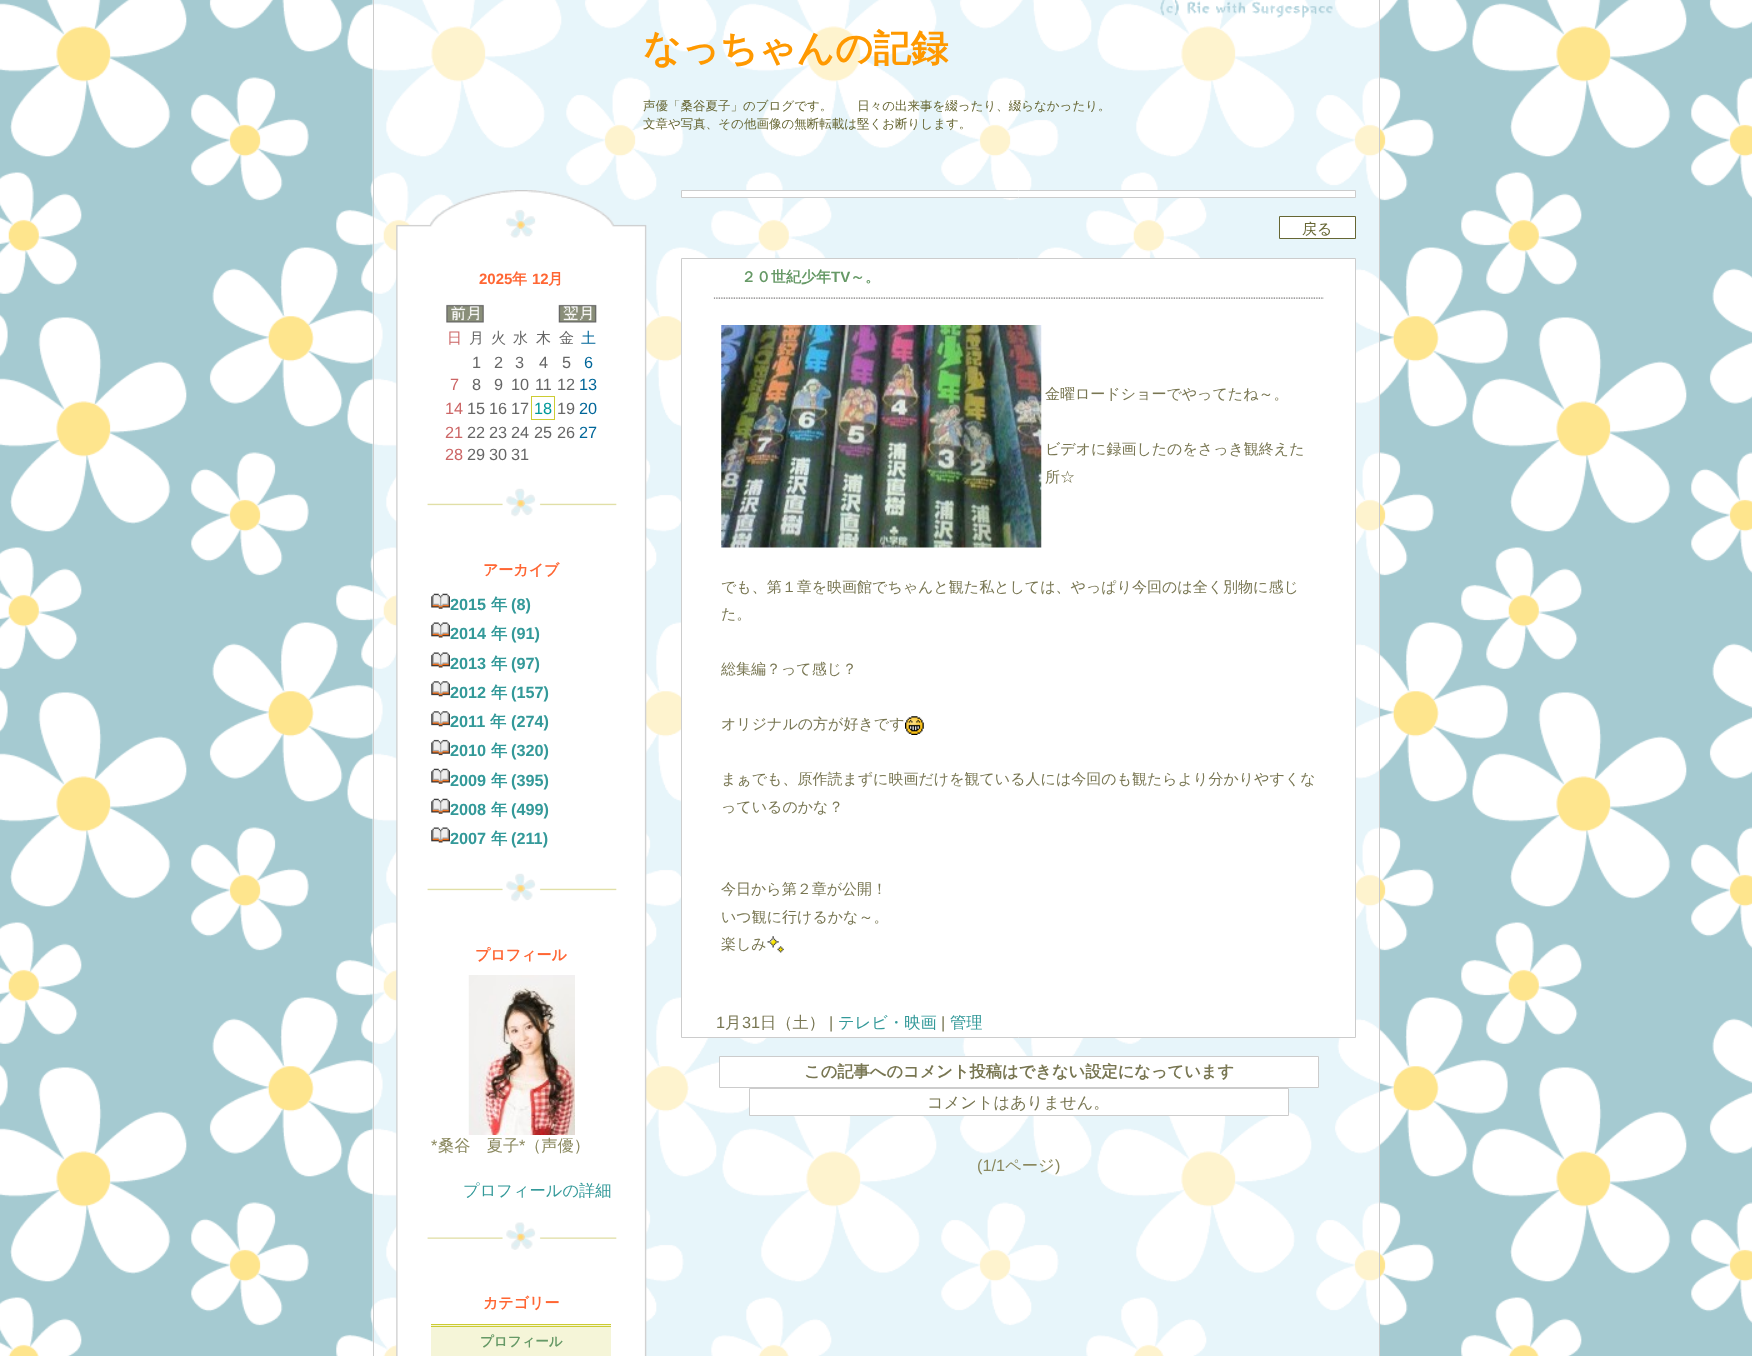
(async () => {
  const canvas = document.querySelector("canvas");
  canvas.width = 1752;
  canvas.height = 1356;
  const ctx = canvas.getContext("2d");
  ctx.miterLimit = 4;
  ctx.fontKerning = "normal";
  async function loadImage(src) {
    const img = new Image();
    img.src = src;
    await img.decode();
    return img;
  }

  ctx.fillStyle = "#ffffff";
  ctx.fillRect(0, 0, 1752, 1356);
  ctx.drawImage(await loadImage("img/1.png"), 0, 0, 1752, 1356);
  ctx.drawImage(await loadImage("img/2.png"), 372, 0, 1007, 1356);
  ctx.fillStyle = "#cccccc";
  ctx.fillRect(1379, 0, 1, 1356);
  ctx.fillRect(373, 0, 1, 1356);
  ctx.drawImage(await loadImage("img/3.png"), 1160, 0, 173, 18);
  ctx.drawImage(await loadImage("img/4.png"), 396, 190, 251, 75);
  ctx.drawImage(await loadImage("img/5.png"), 396, 265, 251, 1091);
  ctx.drawImage(await loadImage("img/6.png"), 446, 304, 38, 19);
  ctx.drawImage(await loadImage("img/7.png"), 558, 304, 39, 19);
  ctx.strokeStyle = "#cccc33";
  ctx.strokeRect(531.5, 396.5, 23, 23);
  ctx.drawImage(await loadImage("img/8.png"), 427, 488, 190, 29);
  ctx.drawImage(await loadImage("img/9.png"), 431, 593, 19, 16);
  ctx.drawImage(await loadImage("img/10.png"), 431, 622, 19, 16);
  ctx.drawImage(await loadImage("img/10.png"), 431, 652, 19, 16);
  ctx.drawImage(await loadImage("img/11.png"), 431, 681, 19, 16);
  ctx.drawImage(await loadImage("img/11.png"), 431, 711, 19, 16);
  ctx.drawImage(await loadImage("img/12.png"), 431, 739, 19, 17);
  ctx.drawImage(await loadImage("img/9.png"), 431, 768, 19, 16);
  ctx.drawImage(await loadImage("img/9.png"), 431, 798, 19, 16);
  ctx.drawImage(await loadImage("img/10.png"), 431, 827, 19, 16);
  ctx.drawImage(await loadImage("img/8.png"), 427, 873, 190, 29);
  ctx.drawImage(await loadImage("img/13.png"), 468, 975, 107, 160);
  ctx.drawImage(await loadImage("img/14.png"), 427, 1222, 190, 28);
  for (const [x, y, w, h, color] of [
    [431, 1325, 180, 31, "#f5f5d8"],
    [431, 1324, 180, 1, "#cccc33"],
    [431, 1326, 180, 1, "#cccc33"],
  ]) {
    ctx.fillStyle = color;
    ctx.fillRect(x, y, w, h);
  }
  ctx.fillStyle = "#ffffff";
  ctx.beginPath();
  ctx.rect(681.5, 190.5, 674, 7);
  ctx.fill();
  ctx.strokeStyle = "#cccccc";
  ctx.stroke();
  ctx.beginPath();
  ctx.rect(1279.5, 216.5, 76, 22);
  ctx.fill();
  ctx.strokeStyle = "#666633";
  ctx.stroke();
  ctx.beginPath();
  ctx.rect(681.5, 258.5, 674, 779);
  ctx.fill();
  ctx.strokeStyle = "#cccccc";
  ctx.stroke();
  ctx.drawImage(await loadImage("img/15.png"), 713, 297, 611, 2);
  ctx.drawImage(await loadImage("img/16.png"), 721, 325, 321, 223);
  ctx.drawImage(await loadImage("img/17.png"), 905, 716, 19, 19);
  ctx.drawImage(await loadImage("img/18.png"), 767, 936, 17, 17);
  ctx.beginPath();
  ctx.rect(719.5, 1056.5, 599, 31);
  ctx.fill();
  ctx.stroke();
  ctx.beginPath();
  ctx.rect(749.5, 1088.5, 539, 27);
  ctx.fill();
  ctx.stroke();
  ctx.font = "bold 37.5px WenQuanYi Zen Hei";
  ctx.fillStyle = "#ff9900";
  ctx.fillText("なっちゃんの記録", 643, 61);
  ctx.font = "500 12.5px WenQuanYi Zen Hei";
  ctx.fillStyle = "#666633";
  ctx.fillText("声優「桑谷夏子」のブログです。　　日々の出来事を綴ったり、綴らなかったり。", 643, 110);
  ctx.fillText("文章や写真、その他画像の無断転載は堅くお断りします。", 643, 128);
  ctx.font = "bold 15px Liberation Sans";
  ctx.fillStyle = "#ff6633";
  ctx.fillText("2025", 479, 284);
  ctx.font = "bold 15px WenQuanYi Zen Hei";
  ctx.fillText("年", 512, 284);
  ctx.font = "bold 15px Liberation Sans";
  ctx.fillText("12", 532, 284);
  ctx.font = "bold 15px WenQuanYi Zen Hei";
  ctx.fillText("月", 548, 284);
  ctx.font = "500 15px WenQuanYi Zen Hei";
  ctx.fillStyle = "#cc6666";
  ctx.fillText("日", 447, 343);
  ctx.fillStyle = "#666666";
  for (const [text, x, y] of [
    ["月", 469, 343],
    ["火", 491, 343],
    ["水", 513, 343],
    ["木", 536, 343],
    ["金", 559, 343],
  ]) {
    ctx.fillText(text, x, y);
  }
  ctx.fillStyle = "#006699";
  ctx.fillText("土", 581, 343);
  ctx.font = "16.25px Liberation Sans";
  ctx.fillStyle = "#666666";
  for (const [text, x, y] of [
    ["1", 472, 368],
    ["2", 494, 368],
    ["3", 515, 368],
    ["4", 539, 368],
    ["5", 562, 368],
  ]) {
    ctx.fillText(text, x, y);
  }
  ctx.fillStyle = "#006699";
  ctx.fillText("6", 584, 368);
  ctx.fillStyle = "#cc6666";
  ctx.fillText("7", 450, 390);
  ctx.fillStyle = "#666666";
  for (const [text, x, y] of [
    ["8", 472, 390],
    ["9", 494, 390],
    ["10", 511, 390],
    ["11", 535, 390],
    ["12", 557, 390],
  ]) {
    ctx.fillText(text, x, y);
  }
  ctx.fillStyle = "#006699";
  ctx.fillText("13", 579, 390);
  ctx.fillStyle = "#cc6666";
  ctx.fillText("14", 445, 414);
  ctx.fillStyle = "#666666";
  for (const [text, x, y] of [
    ["15", 467, 414],
    ["16", 489, 414],
    ["17", 511, 414],
  ]) {
    ctx.fillText(text, x, y);
  }
  ctx.fillStyle = "#009999";
  ctx.fillText("18", 534, 414);
  ctx.fillStyle = "#666666";
  ctx.fillText("19", 557, 414);
  ctx.fillStyle = "#006699";
  ctx.fillText("20", 579, 414);
  ctx.fillStyle = "#cc6666";
  ctx.fillText("21", 445, 438);
  ctx.fillStyle = "#666666";
  for (const [text, x, y] of [
    ["22", 467, 438],
    ["23", 489, 438],
    ["24", 511, 438],
    ["25", 534, 438],
    ["26", 557, 438],
  ]) {
    ctx.fillText(text, x, y);
  }
  ctx.fillStyle = "#006699";
  ctx.fillText("27", 579, 438);
  ctx.fillStyle = "#cc6666";
  ctx.fillText("28", 445, 460);
  ctx.fillStyle = "#666666";
  for (const [text, x, y] of [
    ["29", 467, 460],
    ["30", 489, 460],
    ["31", 511, 460],
  ]) {
    ctx.fillText(text, x, y);
  }
  ctx.font = "bold 15px WenQuanYi Zen Hei";
  ctx.fillStyle = "#ff6633";
  ctx.fillText("アーカイブ", 483, 575);
  ctx.font = "bold 16.25px Liberation Sans";
  ctx.fillStyle = "#339999";
  ctx.fillText("2015", 450, 610);
  ctx.font = "bold 16.25px WenQuanYi Zen Hei";
  ctx.fillText("年", 491, 610);
  ctx.font = "bold 16.25px Liberation Sans";
  ctx.fillText("(8)", 511, 610);
  ctx.fillText("2014", 450, 639);
  ctx.font = "bold 16.25px WenQuanYi Zen Hei";
  ctx.fillText("年", 491, 639);
  ctx.font = "bold 16.25px Liberation Sans";
  ctx.fillText("(91)", 511, 639);
  ctx.fillText("2013", 450, 669);
  ctx.font = "bold 16.25px WenQuanYi Zen Hei";
  ctx.fillText("年", 491, 669);
  ctx.font = "bold 16.25px Liberation Sans";
  ctx.fillText("(97)", 511, 669);
  ctx.fillText("2012", 450, 698);
  ctx.font = "bold 16.25px WenQuanYi Zen Hei";
  ctx.fillText("年", 491, 698);
  ctx.font = "bold 16.25px Liberation Sans";
  ctx.fillText("(157)", 511, 698);
  ctx.fillText("2011", 450, 727);
  ctx.font = "bold 16.25px WenQuanYi Zen Hei";
  ctx.fillText("年", 490, 727);
  ctx.font = "bold 16.25px Liberation Sans";
  ctx.fillText("(274)", 511, 727);
  ctx.fillText("2010", 450, 756);
  ctx.font = "bold 16.25px WenQuanYi Zen Hei";
  ctx.fillText("年", 491, 756);
  ctx.font = "bold 16.25px Liberation Sans";
  ctx.fillText("(320)", 511, 756);
  ctx.fillText("2009", 450, 786);
  ctx.font = "bold 16.25px WenQuanYi Zen Hei";
  ctx.fillText("年", 491, 786);
  ctx.font = "bold 16.25px Liberation Sans";
  ctx.fillText("(395)", 511, 786);
  ctx.fillText("2008", 450, 815);
  ctx.font = "bold 16.25px WenQuanYi Zen Hei";
  ctx.fillText("年", 491, 815);
  ctx.font = "bold 16.25px Liberation Sans";
  ctx.fillText("(499)", 511, 815);
  ctx.fillText("2007", 450, 844);
  ctx.font = "bold 16.25px WenQuanYi Zen Hei";
  ctx.fillText("年", 491, 844);
  ctx.font = "bold 16.25px Liberation Sans";
  ctx.fillText("(211)", 511, 844);
  ctx.font = "bold 15px WenQuanYi Zen Hei";
  ctx.fillStyle = "#ff6633";
  ctx.fillText("プロフィール", 475, 960);
  ctx.font = "16.25px Liberation Sans";
  ctx.fillStyle = "#8a885e";
  ctx.fillText("*", 431, 1151);
  ctx.font = "500 16.25px WenQuanYi Zen Hei";
  ctx.fillText("桑谷　夏子", 438, 1151);
  ctx.font = "16.25px Liberation Sans";
  ctx.fillText("*", 519, 1151);
  ctx.font = "500 16.25px WenQuanYi Zen Hei";
  ctx.fillText("（声優）", 525, 1151);
  ctx.fillStyle = "#339999";
  ctx.fillText("プロフィールの詳細", 463, 1196);
  ctx.font = "bold 15px WenQuanYi Zen Hei";
  ctx.fillStyle = "#ff6633";
  ctx.fillText("カテゴリー", 483, 1308);
  ctx.font = "bold 13.5px WenQuanYi Zen Hei";
  ctx.fillStyle = "#669966";
  ctx.fillText("プロフィール", 480, 1346);
  ctx.font = "500 15px WenQuanYi Zen Hei";
  ctx.fillStyle = "#666633";
  ctx.fillText("戻る", 1302, 234);
  ctx.font = "bold 15px WenQuanYi Zen Hei";
  ctx.fillStyle = "#669966";
  ctx.fillText("２０世紀少年", 741, 282);
  ctx.font = "bold 15px Liberation Sans";
  ctx.fillText("TV", 831, 282);
  ctx.font = "bold 15px WenQuanYi Zen Hei";
  ctx.fillText("～。", 850, 282);
  ctx.font = "500 15px WenQuanYi Zen Hei";
  ctx.fillStyle = "#787652";
  for (const [text, x, y] of [
    ["金曜ロードショーでやってたね～。", 1045, 399],
    ["ビデオに録画したのをさっき観終えた", 1045, 454],
    ["所☆", 1045, 482],
    ["でも、第１章を映画館でちゃんと観た私としては、やっぱり今回のは全く別物に感じ", 721, 592],
    ["た。", 721, 619],
    ["総集編？って感じ？", 721, 674],
    ["オリジナルの方が好きです", 721, 729],
    ["まぁでも、原作読まずに映画だけを観ている人には今回のも観たらより分かりやすくな", 721, 784],
    ["っているのかな？", 721, 812],
    ["今日から第２章が公開！", 721, 894],
    ["いつ観に行けるかな～。", 721, 922],
    ["楽しみ", 721, 949],
  ]) {
    ctx.fillText(text, x, y);
  }
  ctx.font = "16.25px Liberation Sans";
  ctx.fillText("1", 716, 1028);
  ctx.font = "500 16.25px WenQuanYi Zen Hei";
  ctx.fillText("月", 725, 1028);
  ctx.font = "16.25px Liberation Sans";
  ctx.fillText("31", 742, 1028);
  ctx.font = "500 16.25px WenQuanYi Zen Hei";
  ctx.fillText("日（土）", 760, 1028);
  ctx.font = "16.25px Liberation Sans";
  ctx.fillText("|", 829, 1028);
  ctx.font = "500 16.25px WenQuanYi Zen Hei";
  ctx.fillStyle = "#339999";
  ctx.fillText("テレビ・映画", 838, 1028);
  ctx.font = "16.25px Liberation Sans";
  ctx.fillStyle = "#787652";
  ctx.fillText("|", 941, 1028);
  ctx.font = "500 16.25px WenQuanYi Zen Hei";
  ctx.fillStyle = "#339999";
  ctx.fillText("管理", 950, 1028);
  ctx.font = "bold 16.25px WenQuanYi Zen Hei";
  ctx.fillStyle = "#787652";
  ctx.fillText("この記事へのコメント投稿はできない設定になっています", 804, 1077);
  ctx.font = "500 16.25px WenQuanYi Zen Hei";
  ctx.fillText("コメントはありません。", 927, 1108);
  ctx.font = "16.25px Liberation Sans";
  ctx.fillStyle = "#8a885e";
  ctx.fillText("(1/1", 977, 1171);
  ctx.font = "500 16.25px WenQuanYi Zen Hei";
  ctx.fillText("ページ", 1005, 1171);
  ctx.font = "16.25px Liberation Sans";
  ctx.fillText(")", 1055, 1171);
})();
